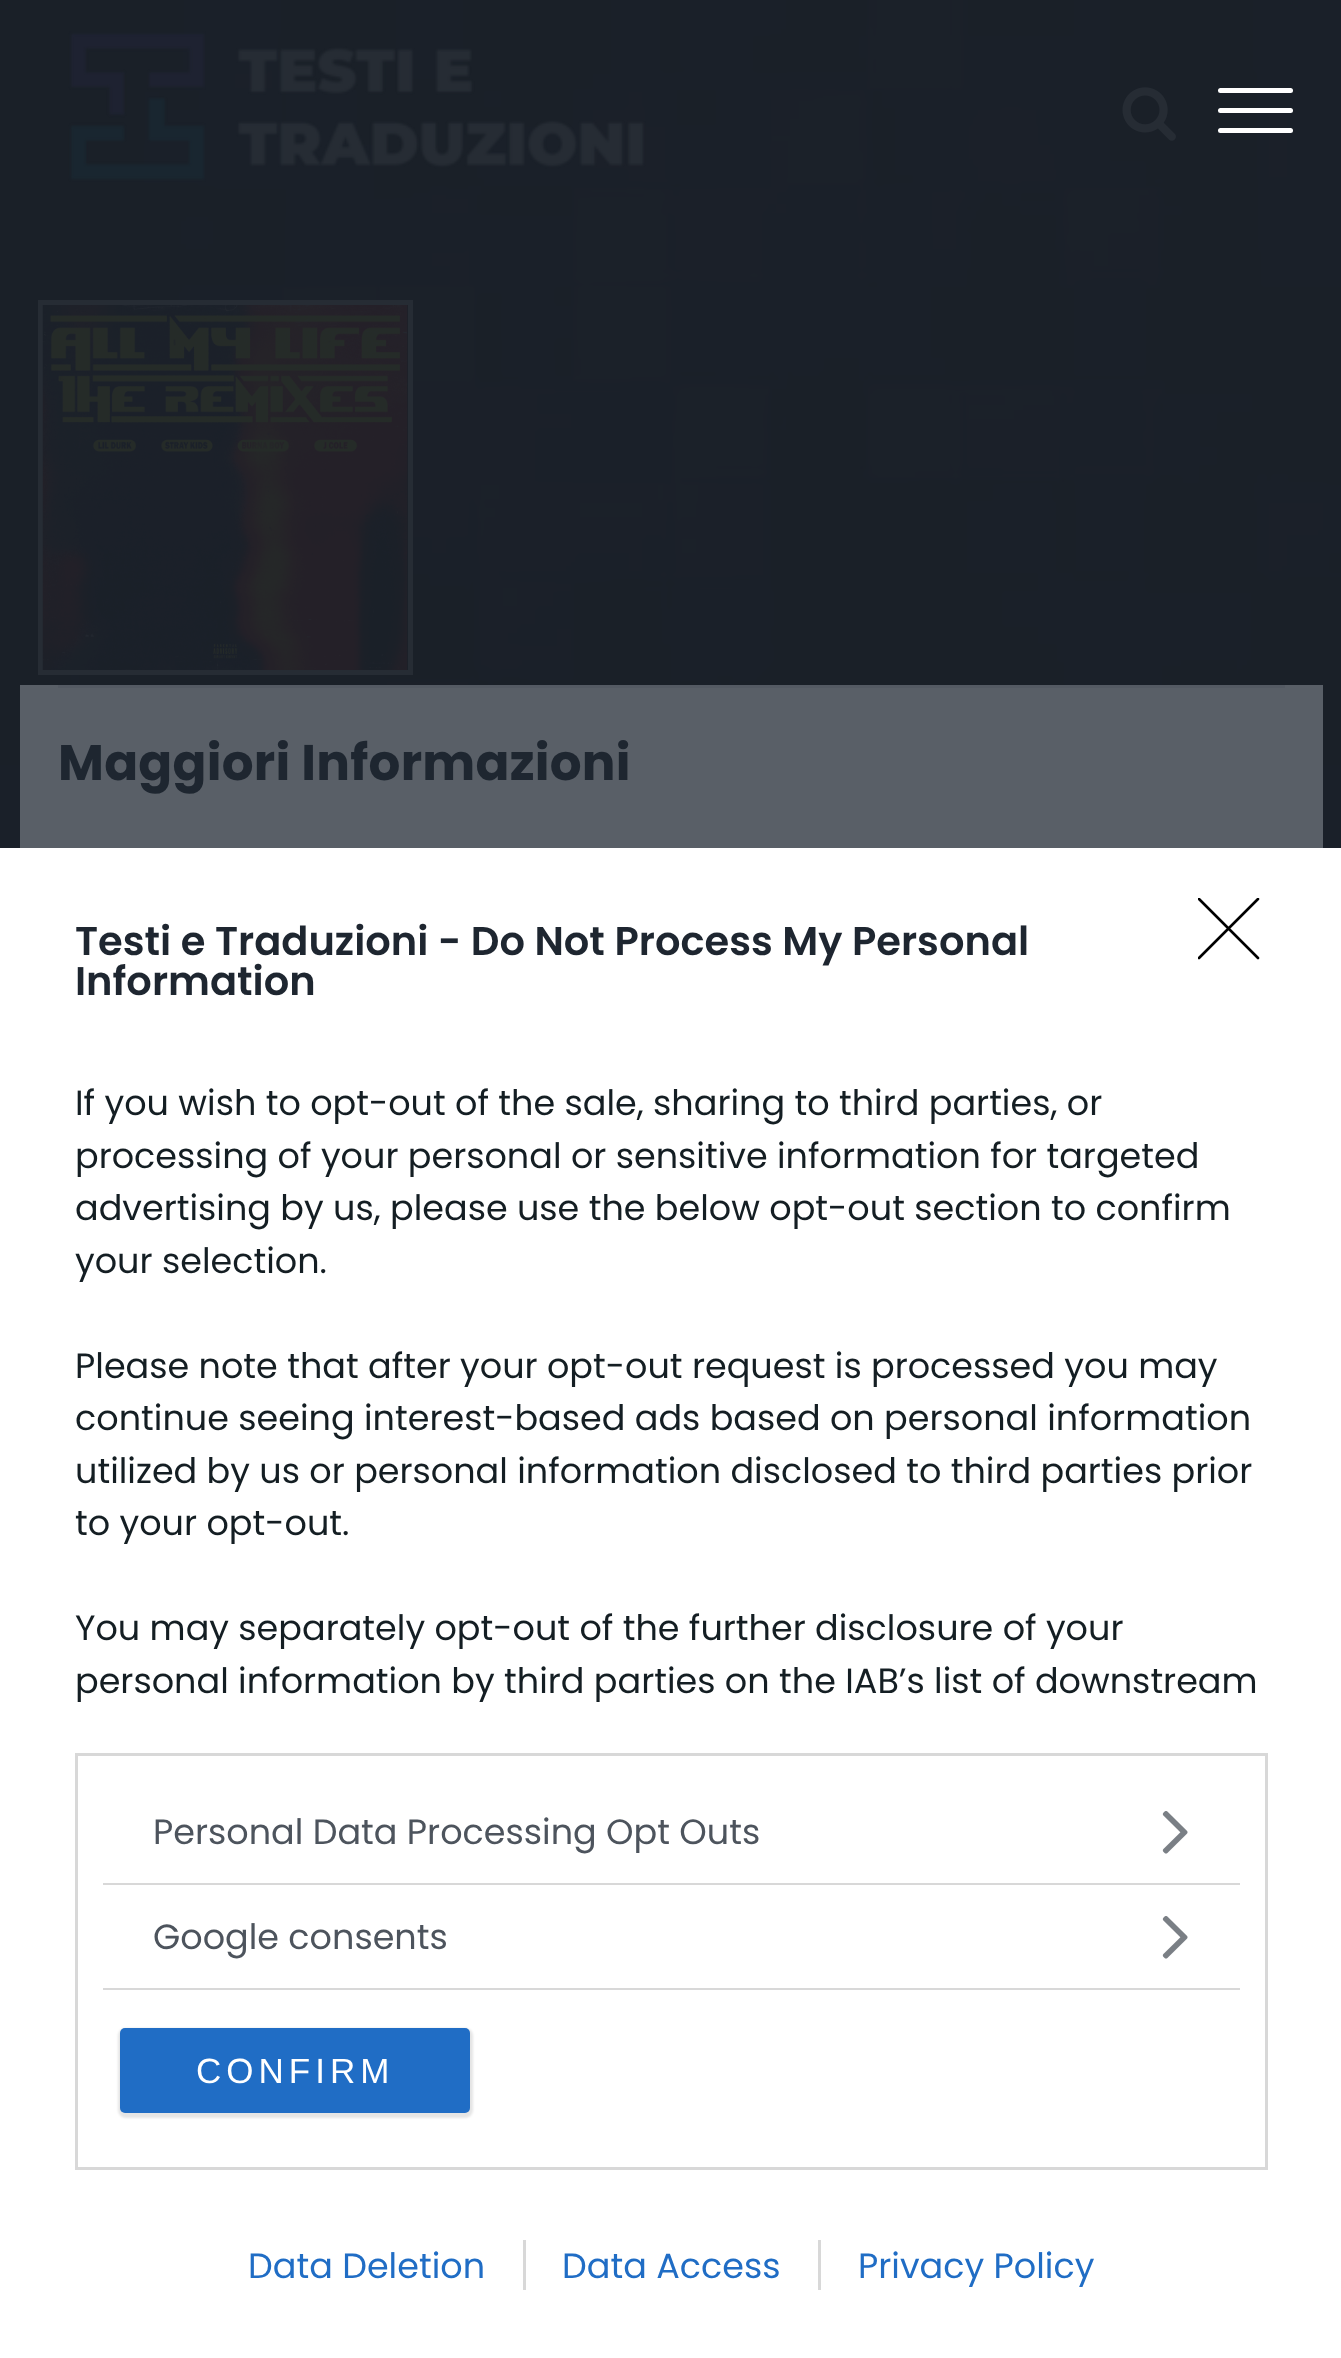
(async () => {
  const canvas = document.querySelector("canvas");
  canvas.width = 1341;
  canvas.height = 2358;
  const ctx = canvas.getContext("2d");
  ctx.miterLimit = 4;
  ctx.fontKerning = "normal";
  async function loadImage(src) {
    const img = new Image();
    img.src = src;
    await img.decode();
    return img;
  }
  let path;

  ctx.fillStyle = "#1a2029";
  ctx.fillRect(0, 0, 1341, 2358);
  ctx.drawImage(await loadImage("img/1.png"), 0, 0, 1341, 765);
  ctx.drawImage(await loadImage("img/2.png"), 68, 31, 578, 151);
  ctx.drawImage(await loadImage("img/3.png"), 1122, 87, 54, 54);
  ctx.strokeStyle = "#262c34";
  ctx.lineWidth = 5;
  ctx.strokeRect(40.5, 302.5, 370, 370);
  ctx.drawImage(await loadImage("img/4.png"), 42, 305, 366, 365);
  ctx.fillStyle = "#ffffff";
  ctx.beginPath();
  ctx.roundRect(1218, 88, 75, 5, 2.5);
  ctx.fill();
  ctx.beginPath();
  ctx.roundRect(1218, 108, 75, 5, 2.5);
  ctx.fill();
  ctx.beginPath();
  ctx.roundRect(1218, 128, 75, 5, 2.5);
  ctx.fill();
  for (const [x, y, w, h, color] of [
    [20, 685, 1303, 163, "#595f67"],
    [58, 685, 1227, 3, "#545a63"],
    [0, 848, 1341, 1510, "#ffffff"],
  ]) {
    ctx.fillStyle = color;
    ctx.fillRect(x, y, w, h);
  }
  ctx.save();
  ctx.beginPath();
  ctx.rect(1198, 898, 62, 62);
  ctx.clip();
  path = new Path2D("M1199 899L1258 958M1258 899L1199 958");
  ctx.strokeStyle = "#000000";
  ctx.lineWidth = 2.6;
  ctx.lineCap = "round";
  ctx.lineJoin = "round";
  ctx.stroke(path);
  ctx.restore();
  ctx.strokeStyle = "#d8d8d8";
  ctx.lineWidth = 3;
  ctx.strokeRect(76.5, 1754.5, 1190, 414);
  ctx.fillStyle = "#d8d8d8";
  ctx.fillRect(103, 1883, 1137, 2);
  ctx.drawImage(await loadImage("img/5.png"), 1162, 1811, 26, 43);
  ctx.fillRect(103, 1988, 1137, 2);
  ctx.drawImage(await loadImage("img/5.png"), 1162, 1916, 26, 43);
  ctx.fillStyle = "rgba(0, 0, 0, 0.1)";
  ctx.filter = "blur(1px)";
  ctx.beginPath();
  ctx.roundRect(118, 2028, 355, 90, 8);
  ctx.fill();
  ctx.filter = "none";
  ctx.fillStyle = "#206dc5";
  ctx.beginPath();
  ctx.roundRect(120, 2028, 350, 85, 5);
  ctx.fill();
  ctx.fillStyle = "#d8d8d8";
  ctx.fillRect(523, 2240, 3, 50);
  ctx.fillRect(818, 2240, 3, 50);
  ctx.letterSpacing = "0.25px";
  ctx.font = "bold 50px Poppins";
  ctx.fillStyle = "#1e2630";
  ctx.fillText("Maggiori Informazioni", 58, 780);
  ctx.letterSpacing = "0px";
  ctx.font = "600 40px Poppins";
  ctx.fillText("Testi e Traduzioni - Do Not Process My Personal", 75, 955);
  ctx.fillText("Information", 75, 995);
  ctx.font = "35px Poppins";
  ctx.fillStyle = "#141e23";
  for (const [text, x, y] of [
    ["If you wish to opt-out of the sale, sharing to third parties, or", 75, 1115],
    ["processing of your personal or sensitive information for targeted", 75, 1168],
    ["advertising by us, please use the below opt-out section to confirm", 75, 1220],
    ["your selection.", 75, 1273],
    ["Please note that after your opt-out request is processed you may", 75, 1378],
    ["continue seeing interest-based ads based on personal information", 75, 1430],
    ["utilized by us or personal information disclosed to third parties prior", 75, 1483],
    ["to your opt-out.", 75, 1535],
    ["You may separately opt-out of the further disclosure of your", 75, 1640],
    ["personal information by third parties on the IAB’s list of downstream", 75, 1693],
  ]) {
    ctx.fillText(text, x, y);
  }
  ctx.fillStyle = "#4d545d";
  ctx.fillText("Personal Data Processing Opt Outs", 153, 1844);
  ctx.fillText("Google consents", 153, 1949);
  ctx.letterSpacing = "5px";
  ctx.font = "35px Liberation Sans";
  ctx.fillStyle = "#ffffff";
  ctx.fillText("CONFIRM", 196, 2083);
  ctx.letterSpacing = "0px";
  ctx.font = "35px Poppins";
  ctx.fillStyle = "#206dc5";
  for (const [text, x, y] of [
    ["Data Deletion", 248, 2278],
    ["Data Access", 562, 2278],
    ["Privacy Policy", 858, 2278],
  ]) {
    ctx.fillText(text, x, y);
  }
})();
